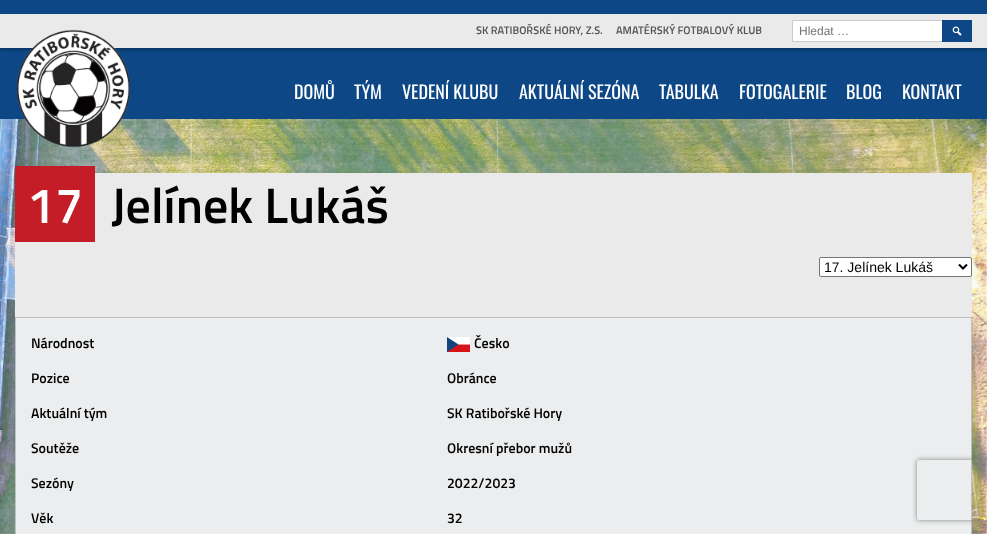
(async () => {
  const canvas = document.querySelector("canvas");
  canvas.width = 987;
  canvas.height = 534;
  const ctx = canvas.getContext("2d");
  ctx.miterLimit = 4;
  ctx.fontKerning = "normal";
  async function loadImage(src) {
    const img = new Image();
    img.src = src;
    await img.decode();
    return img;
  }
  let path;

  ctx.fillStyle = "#ffffff";
  ctx.fillRect(0, 0, 987, 534);
  ctx.drawImage(await loadImage("img/1.png"), 0, 119, 987, 415);
  ctx.fillStyle = "#0d4785";
  ctx.fillRect(0, 0, 987, 119);
  ctx.fillStyle = "rgba(0, 0, 0, 0.25)";
  ctx.filter = "blur(1.5px)";
  ctx.beginPath();
  ctx.rect(0, 16, 987, 34);
  ctx.fill();
  ctx.filter = "none";
  ctx.fillStyle = "#eaeaea";
  ctx.fillRect(0, 14, 987, 34);
  ctx.drawImage(await loadImage("img/2.png"), 16, 29, 115, 119);
  for (const [x, y, w, h, color] of [
    [793, 21, 149, 20, "#ffffff"],
    [792, 20, 150, 1, "#cccccc"],
    [792, 41, 150, 1, "#cccccc"],
    [792, 20, 1, 22, "#cccccc"],
    [942, 20, 30, 22, "#0d4785"],
  ]) {
    ctx.fillStyle = color;
    ctx.fillRect(x, y, w, h);
  }
  ctx.drawImage(await loadImage("img/3.png"), 952, 26, 10, 10);
  ctx.fillStyle = "#eaeaea";
  ctx.fillRect(15, 173, 957, 144);
  ctx.fillStyle = "#c51d27";
  ctx.fillRect(15, 166, 80, 76);
  ctx.fillStyle = "#ffffff";
  ctx.beginPath();
  ctx.roundRect(819.5, 257.5, 152, 19, 1.5);
  ctx.fill();
  ctx.strokeStyle = "#767676";
  ctx.stroke();
  path = new Path2D("M959 264.5L963 268.5L967 264.5");
  ctx.strokeStyle = "#000000";
  ctx.lineWidth = 2;
  ctx.stroke(path);
  ctx.fillStyle = "#ecedee";
  ctx.beginPath();
  ctx.rect(15.5, 317.5, 956, 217);
  ctx.fill();
  ctx.strokeStyle = "#c0c0c0";
  ctx.lineWidth = 1;
  ctx.stroke();
  ctx.drawImage(await loadImage("img/4.png"), 447, 337, 23, 15);
  ctx.save();
  path = new Path2D("M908 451H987V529H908ZM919 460H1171C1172 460 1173 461 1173 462V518C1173 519 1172 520 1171 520H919C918 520 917 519 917 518V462C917 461 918 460 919 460Z");
  ctx.clip(path, "evenodd");
  ctx.fillStyle = "#808080";
  ctx.filter = "blur(2.5px)";
  ctx.beginPath();
  ctx.roundRect(917, 460, 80, 60, 2);
  ctx.fill();
  ctx.filter = "none";
  ctx.restore();
  ctx.font = "600 11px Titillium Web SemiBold";
  ctx.fillStyle = "#555555";
  ctx.fillText("SK RATIBOŘSKÉ HORY, Z.S.", 476, 34);
  ctx.fillText("AMATÉRSKÝ FOTBALOVÝ KLUB", 616, 34);
  ctx.font = "12px Liberation Sans";
  ctx.fillStyle = "#757575";
  ctx.fillText("Hledat …", 799, 35);
  ctx.font = "18px Oswald";
  ctx.fillStyle = "#ffffff";
  for (const [text, x, y] of [
    ["DOMŮ", 294, 99],
    ["TÝM", 354, 99],
    ["VEDENÍ KLUBU", 402, 99],
    ["AKTUÁLNÍ SEZÓNA", 519, 99],
    ["TABULKA", 659, 99],
    ["FOTOGALERIE", 739, 99],
    ["BLOG", 846, 99],
    ["KONTAKT", 902, 99],
  ]) {
    ctx.fillText(text, x, y);
  }
  ctx.font = "600 50px Titillium Web SemiBold";
  ctx.fillText("17", 27, 223);
  ctx.fillStyle = "#000000";
  ctx.fillText("Jelínek Lukáš", 111, 223);
  ctx.font = "14px Liberation Sans";
  ctx.fillText("17. Jelínek Lukáš", 824, 272);
  ctx.font = "600 14px Titillium Web SemiBold";
  for (const [text, x, y] of [
    ["Národnost", 31, 348],
    ["Česko", 474, 348],
    ["Pozice", 31, 383],
    ["Obránce", 447, 383],
    ["Aktuální tým", 31, 418],
    ["SK Ratibořské Hory", 447, 418],
    ["Soutěže", 31, 453],
    ["Okresní přebor mužů", 447, 453],
    ["Sezóny", 31, 488],
    ["2022/2023", 447, 488],
    ["Věk", 31, 523],
    ["32", 447, 523],
  ]) {
    ctx.fillText(text, x, y);
  }
})();
